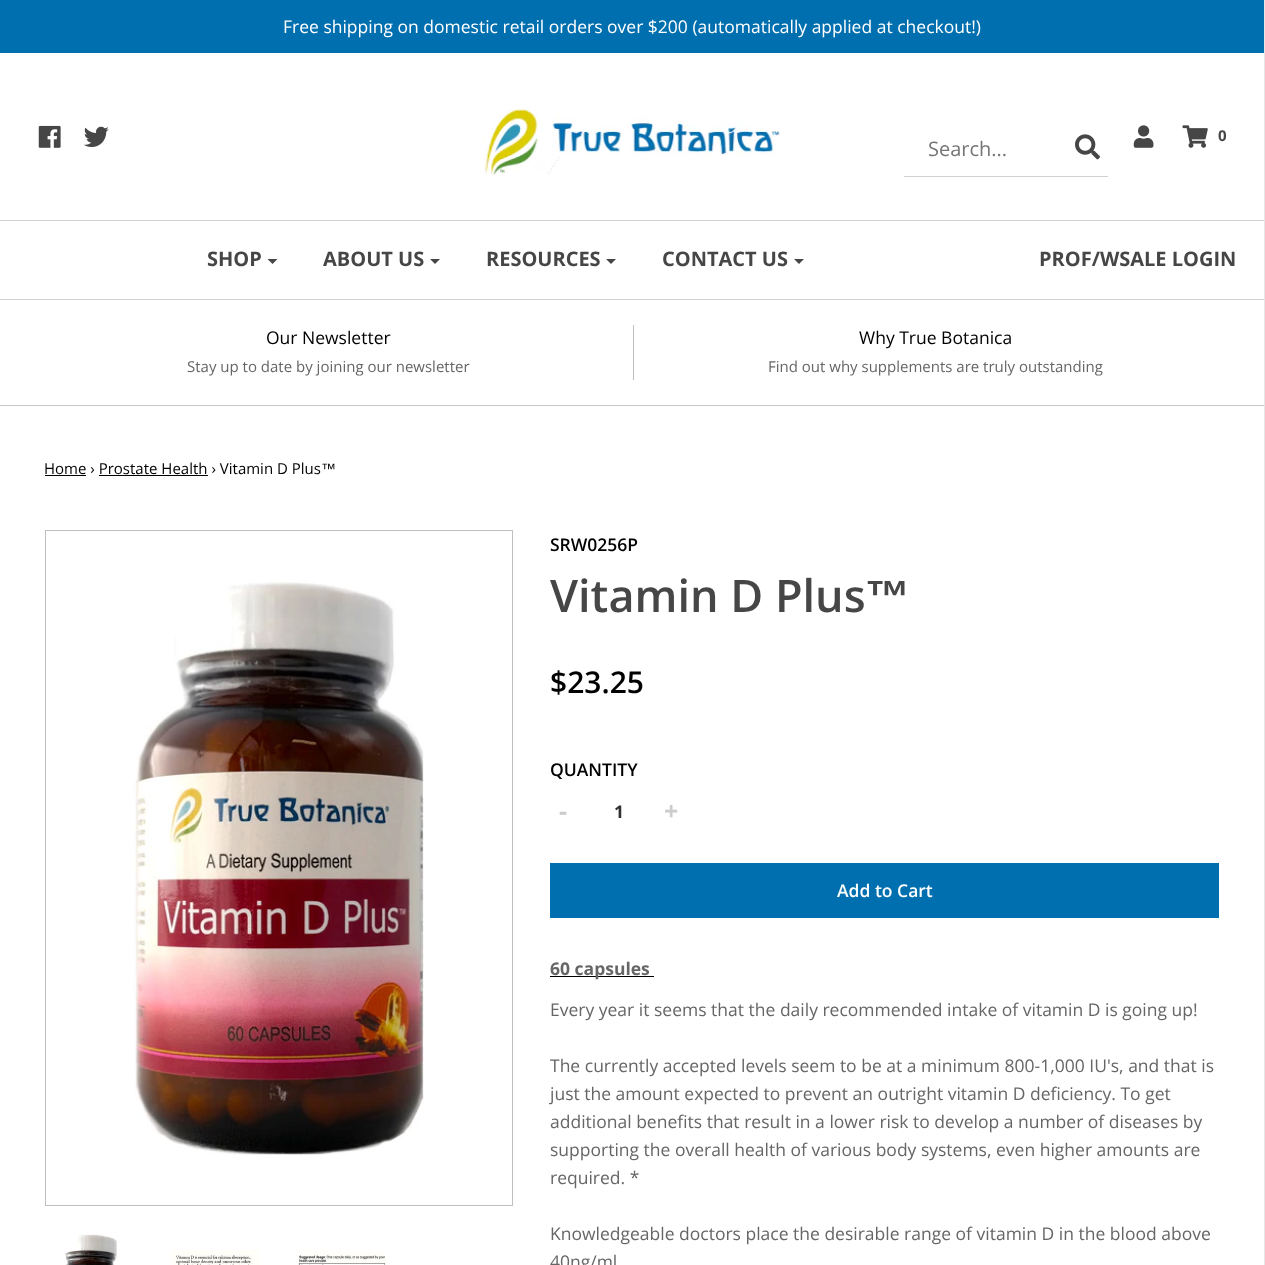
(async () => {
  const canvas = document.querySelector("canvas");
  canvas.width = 1265;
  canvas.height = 1265;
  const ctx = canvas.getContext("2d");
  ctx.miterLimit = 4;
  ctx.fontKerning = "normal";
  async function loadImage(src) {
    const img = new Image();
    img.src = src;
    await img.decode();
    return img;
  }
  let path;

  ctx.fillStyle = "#ffffff";
  ctx.fillRect(0, 0, 1265, 1265);
  ctx.fillStyle = "#e6e6e6";
  ctx.fillRect(1264, 0, 1, 1265);
  ctx.fillStyle = "#006faf";
  ctx.fillRect(0, 0, 1264, 53);
  ctx.drawImage(await loadImage("img/1.png"), 38, 125, 23, 23);
  ctx.drawImage(await loadImage("img/2.png"), 84, 126, 25, 21);
  ctx.drawImage(await loadImage("img/3.png"), 484, 108, 296, 68);
  ctx.drawImage(await loadImage("img/4.png"), 1133, 125, 21, 23);
  ctx.drawImage(await loadImage("img/5.png"), 1182, 125, 26, 23);
  ctx.fillStyle = "#d1d1d1";
  ctx.fillRect(904, 176, 204, 1);
  ctx.drawImage(await loadImage("img/6.png"), 1075, 134, 25, 26);
  ctx.fillRect(0, 220, 1264, 1);
  ctx.fillRect(0, 299, 1264, 1);
  ctx.fillStyle = "#464646";
  path = new Path2D("M267.5 259H277.5L272.5 264Z");
  ctx.fill(path);
  path = new Path2D("M430 259H440L435 264Z");
  ctx.fill(path);
  path = new Path2D("M606 259H616L611 264Z");
  ctx.fill(path);
  path = new Path2D("M794 259H804L799 264Z");
  ctx.fill(path);
  for (const [x, y, w, h, color] of [
    [0, 405, 1264, 1, "#c6c6c6"],
    [633, 325, 1, 55, "#bfbfbf"],
    [45, 475, 41, 1, "#000000"],
    [99, 475, 109, 1, "#000000"],
  ]) {
    ctx.fillStyle = color;
    ctx.fillRect(x, y, w, h);
  }
  ctx.strokeStyle = "#bfbfbf";
  ctx.strokeRect(45.5, 530.5, 467, 675);
  ctx.drawImage(await loadImage("img/7.png"), 133, 582, 291, 573);
  ctx.drawImage(await loadImage("img/8.png"), 65, 1234, 52, 31);
  ctx.drawImage(await loadImage("img/9.png"), 171, 1250, 89, 15);
  ctx.drawImage(await loadImage("img/10.png"), 297, 1250, 89, 15);
  ctx.fillStyle = "#006faf";
  ctx.fillRect(550, 863, 669, 55);
  ctx.fillStyle = "#000000";
  ctx.fillRect(550, 976, 104, 1);
  ctx.font = "17.5px Open Sans";
  ctx.fillStyle = "#ffffff";
  ctx.fillText("Free shipping on domestic retail orders over $200 (automatically applied at checkout!)", 283, 33);
  ctx.font = "bold 15px Open Sans";
  ctx.fillStyle = "#464646";
  ctx.fillText("0", 1218, 141);
  ctx.font = "20px Open Sans";
  ctx.fillStyle = "#757575";
  ctx.fillText("Search...", 928, 156);
  ctx.font = "bold 20px Open Sans";
  ctx.fillStyle = "#464646";
  for (const [text, x, y] of [
    ["SHOP", 207, 266],
    ["ABOUT US", 323, 266],
    ["RESOURCES", 486, 266],
    ["CONTACT US", 662, 266],
    ["PROF/WSALE LOGIN", 1039, 266],
  ]) {
    ctx.fillText(text, x, y);
  }
  ctx.font = "17.5px Open Sans";
  ctx.fillStyle = "#000000";
  ctx.fillText("Our Newsletter", 266, 344);
  ctx.font = "15px Open Sans";
  ctx.fillStyle = "#666666";
  ctx.fillText("Stay up to date by joining our newsletter", 187, 372);
  ctx.font = "17.5px Open Sans";
  ctx.fillStyle = "#000000";
  ctx.fillText("Why True Botanica", 859, 344);
  ctx.font = "15px Open Sans";
  ctx.fillStyle = "#666666";
  ctx.fillText("Find out why supplements are truly outstanding", 768, 372);
  ctx.fillStyle = "#000000";
  ctx.fillText("Home › Prostate Health › Vitamin D Plus", 44, 474);
  ctx.font = "15px Liberation Sans";
  ctx.fillText("™", 321, 474);
  ctx.font = "600 17.5px Open Sans";
  ctx.fillText("SRW0256P", 550, 551);
  ctx.font = "600 45px Open Sans";
  ctx.fillStyle = "#464646";
  ctx.fillText("Vitamin D Plus", 550, 612);
  ctx.font = "bold 45px Liberation Sans";
  ctx.fillText("™", 865, 612);
  ctx.font = "600 30px Open Sans";
  ctx.fillStyle = "#000000";
  ctx.fillText("$23.25", 550, 693);
  ctx.font = "600 17.5px Open Sans";
  ctx.fillText("QUANTITY", 550, 776);
  ctx.font = "bold 25px Open Sans";
  ctx.fillStyle = "#cccccc";
  ctx.fillText("-", 559, 820);
  ctx.font = "bold 17.5px Open Sans";
  ctx.fillStyle = "#313131";
  ctx.fillText("1", 614, 818);
  ctx.font = "bold 25px Open Sans";
  ctx.fillStyle = "#cccccc";
  ctx.fillText("+", 664, 820);
  ctx.font = "600 17.5px Open Sans";
  ctx.fillStyle = "#ffffff";
  ctx.fillText("Add to Cart", 837, 897);
  ctx.font = "bold 17.5px Open Sans";
  ctx.fillStyle = "#666666";
  ctx.fillText("60 capsules", 550, 975);
  ctx.font = "17.5px Open Sans";
  for (const [text, x, y] of [
    ["Every year it seems that the daily recommended intake of vitamin D is going up!", 550, 1016],
    ["The currently accepted levels seem to be at a minimum 800-1,000 IU's, and that is", 550, 1072],
    ["just the amount expected to prevent an outright vitamin D deficiency. To get", 550, 1100],
    ["additional benefits that result in a lower risk to develop a number of diseases by", 550, 1128],
    ["supporting the overall health of various body systems, even higher amounts are", 550, 1156],
    ["required. *", 550, 1184],
    ["Knowledgeable doctors place the desirable range of vitamin D in the blood above", 550, 1240],
    ["40ng/ml", 550, 1268],
  ]) {
    ctx.fillText(text, x, y);
  }
})();
